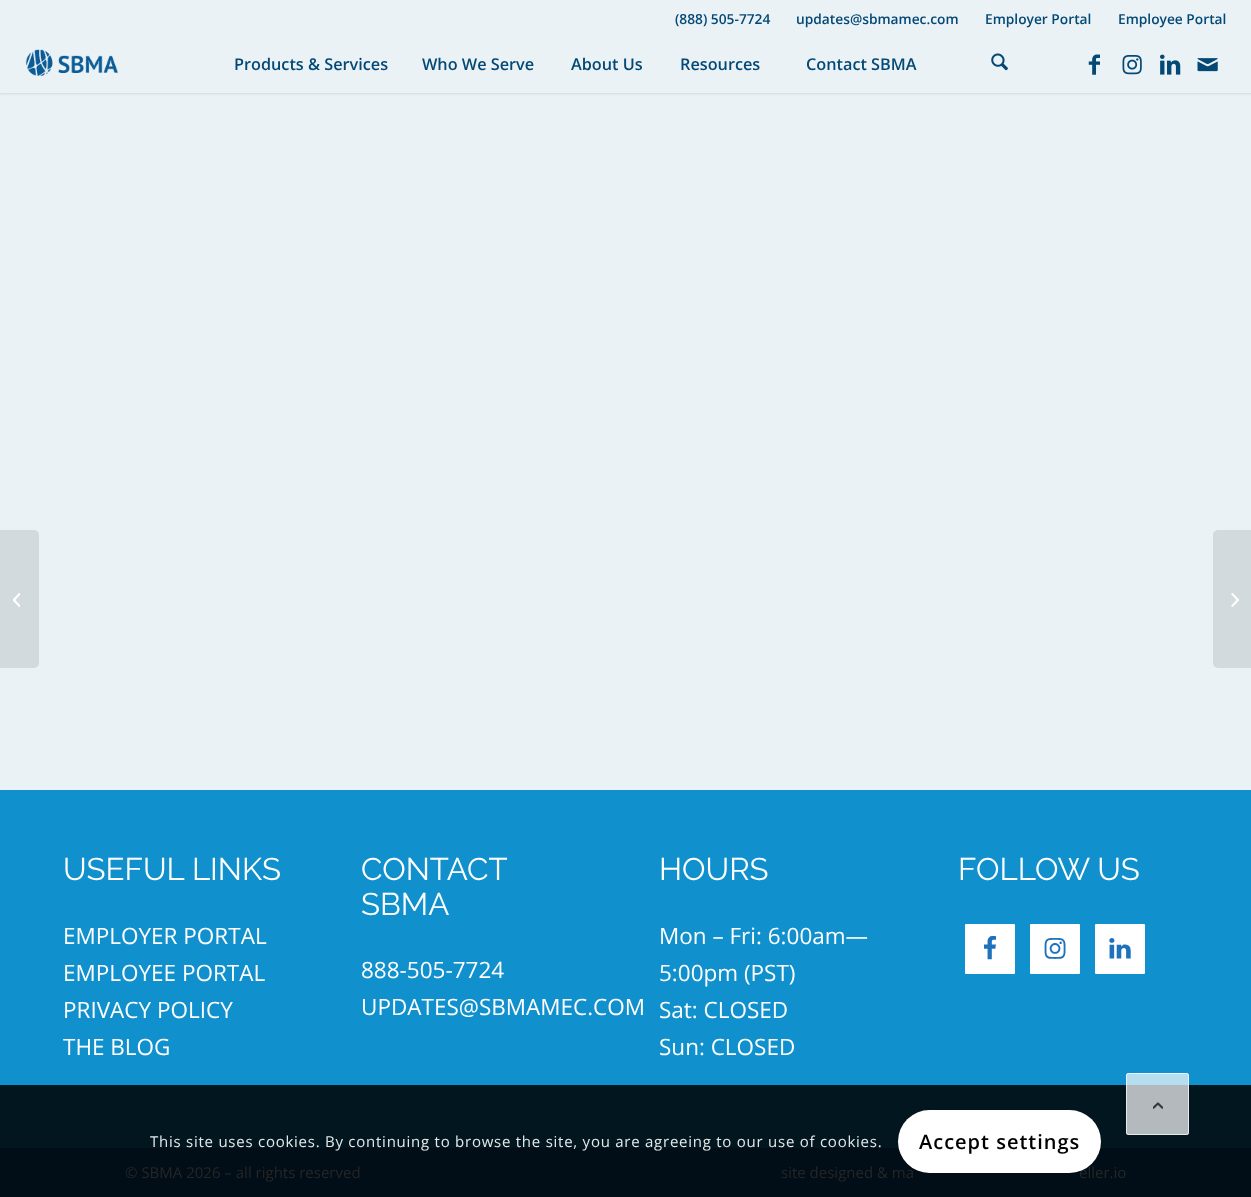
(async () => {
  const canvas = document.querySelector("canvas");
  canvas.width = 1251;
  canvas.height = 1197;
  const ctx = canvas.getContext("2d");
  ctx.miterLimit = 4;
  ctx.fontKerning = "normal";
  async function loadImage(src) {
    const img = new Image();
    img.src = src;
    await img.decode();
    return img;
  }

  ctx.fillStyle = "#eaf2f6";
  ctx.fillRect(0, 0, 1251, 1197);
  ctx.fillStyle = "#d3dadd";
  ctx.beginPath();
  ctx.roundRect(0, 530, 39, 138, [0, 5, 5, 0]);
  ctx.fill();
  ctx.drawImage(await loadImage("img/1.png"), 13, 593, 7, 14);
  ctx.fillStyle = "rgba(0, 0, 0, 0.1)";
  ctx.filter = "blur(1px)";
  ctx.beginPath();
  ctx.rect(-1, -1, 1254, 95);
  ctx.fill();
  ctx.filter = "none";
  ctx.fillStyle = "#eaf2f6";
  ctx.fillRect(0, 0, 1251, 93);
  ctx.drawImage(await loadImage("img/2.png"), 25, 49, 93, 27);
  ctx.drawImage(await loadImage("img/3.png"), 991, 53, 17, 18);
  ctx.drawImage(await loadImage("img/4.png"), 1088, 54, 12, 21);
  ctx.drawImage(await loadImage("img/5.png"), 1122, 55, 20, 20);
  ctx.drawImage(await loadImage("img/6.png"), 1160, 54, 21, 21);
  ctx.drawImage(await loadImage("img/7.png"), 1197, 58, 21, 14);
  ctx.fillStyle = "#1090cc";
  ctx.fillRect(0, 790, 1251, 295);
  ctx.fillStyle = "#02161f";
  ctx.fillRect(0, 1085, 1251, 63);
  ctx.fillStyle = "#ffffff";
  ctx.beginPath();
  ctx.roundRect(965, 924, 50, 50, 1);
  ctx.fill();
  ctx.drawImage(await loadImage("img/8.png"), 984, 936, 13, 24);
  ctx.beginPath();
  ctx.roundRect(1030, 924, 50, 50, 1);
  ctx.fill();
  ctx.drawImage(await loadImage("img/9.png"), 1044, 938, 22, 21);
  ctx.beginPath();
  ctx.roundRect(1095, 924, 50, 50, 1);
  ctx.fill();
  ctx.drawImage(await loadImage("img/10.png"), 1109, 938, 22, 21);
  ctx.fillStyle = "#010e17";
  ctx.fillRect(0, 1148, 1251, 49);
  ctx.fillStyle = "#d3dadd";
  ctx.beginPath();
  ctx.roundRect(1213, 530, 38, 138, [5, 0, 0, 5]);
  ctx.fill();
  ctx.drawImage(await loadImage("img/11.png"), 1231, 593, 8, 14);
  ctx.fillStyle = "rgba(255, 255, 255, 0.7)";
  ctx.beginPath();
  ctx.roundRect(1126, 1073, 63, 62, 2.5);
  ctx.fill();
  ctx.beginPath();
  ctx.roundRect(1126.5, 1073.5, 62, 61, 2);
  ctx.strokeStyle = "rgba(255, 255, 255, 0.7)";
  ctx.stroke();
  ctx.drawImage(await loadImage("img/12.png"), 1153, 1102, 10, 7);
  ctx.font = "600 13.75px Open Sans";
  ctx.fillStyle = "#044876";
  for (const [text, x, y] of [
    ["(888) 505-7724", 675, 24],
    ["updates@sbmamec.com", 796, 24],
    ["Employer Portal", 985, 24],
    ["Employee Portal", 1118, 24],
  ]) {
    ctx.fillText(text, x, y);
  }
  ctx.font = "600 16.25px Open Sans";
  for (const [text, x, y] of [
    ["Products & Services", 234, 70],
    ["Who We Serve", 422, 70],
    ["About Us", 571, 70],
    ["Resources", 680, 70],
    ["Contact SBMA", 806, 70],
  ]) {
    ctx.fillText(text, x, y);
  }
  ctx.font = "100 31.25px Raleway";
  ctx.fillStyle = "#ffffff";
  ctx.fillText("USEFUL LINKS", 63, 880);
  ctx.font = "22.5px Open Sans";
  for (const [text, x, y] of [
    ["EMPLOYER PORTAL", 63, 944],
    ["EMPLOYEE PORTAL", 63, 981],
    ["PRIVACY POLICY", 63, 1018],
    ["THE BLOG", 63, 1055],
  ]) {
    ctx.fillText(text, x, y);
  }
  ctx.font = "100 31.25px Raleway";
  ctx.fillText("CONTACT", 361, 880);
  ctx.fillText("SBMA", 361, 915);
  ctx.font = "22.5px Open Sans";
  ctx.fillText("888-505-7724", 361, 978);
  ctx.fillText("UPDATES@SBMAMEC.COM", 361, 1015);
  ctx.font = "100 31.25px Raleway";
  ctx.fillText("HOURS", 659, 880);
  ctx.font = "22.5px Open Sans";
  for (const [text, x, y] of [
    ["Mon – Fri: 6:00am—", 659, 944],
    ["5:00pm (PST)", 659, 981],
    ["Sat: CLOSED", 659, 1018],
    ["Sun: CLOSED", 659, 1055],
  ]) {
    ctx.fillText(text, x, y);
  }
  ctx.font = "100 31.25px Raleway";
  ctx.fillText("FOLLOW US", 958, 880);
  ctx.font = "15px Open Sans";
  ctx.fillStyle = "#262626";
  for (const [text, x, y] of [
    ["© SBMA 2026 – all rights reserved", 125, 1178],
    ["site designed & ma", 781, 1178],
    ["eller.io", 1079, 1178],
  ]) {
    ctx.fillText(text, x, y);
  }
  ctx.letterSpacing = "0.75px";
  ctx.fillStyle = "#e6e8e9";
  ctx.fillText("This site uses cookies. By continuing to browse the site, you are agreeing to our use of cookies.", 150, 1147);
  ctx.fillStyle = "#ffffff";
  ctx.beginPath();
  ctx.roundRect(898, 1110, 203, 63, 31.5);
  ctx.fill();
  ctx.letterSpacing = "1px";
  ctx.font = "600 20px Open Sans";
  ctx.fillStyle = "#000000";
  ctx.fillText("Accept settings", 919, 1149);
})();
